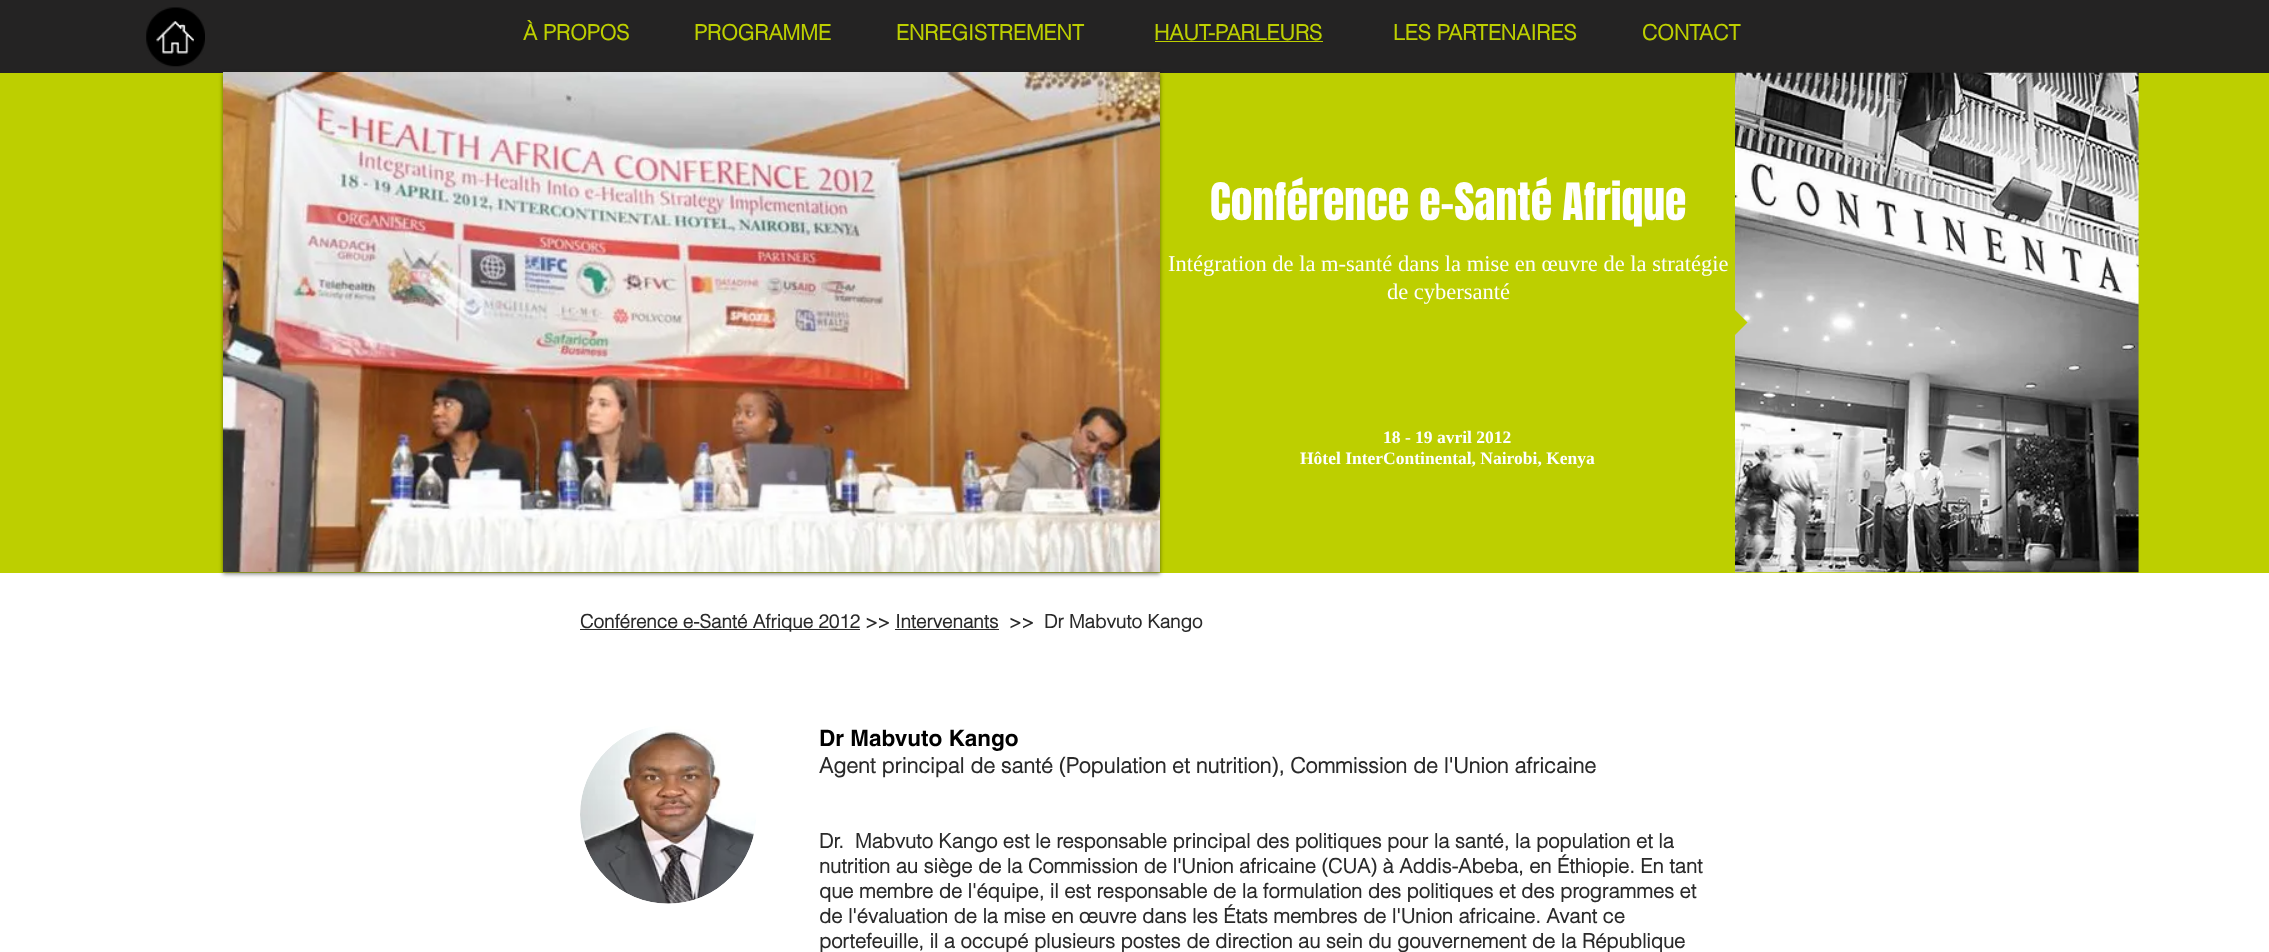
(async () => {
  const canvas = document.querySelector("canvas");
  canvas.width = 2269;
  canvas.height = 952;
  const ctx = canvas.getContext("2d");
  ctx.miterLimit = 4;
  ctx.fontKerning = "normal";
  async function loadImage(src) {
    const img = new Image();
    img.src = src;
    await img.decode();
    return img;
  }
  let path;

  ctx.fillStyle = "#ffffff";
  ctx.fillRect(0, 0, 2269, 952);
  ctx.fillStyle = "#242323";
  ctx.fillRect(0, 0, 2269, 73);
  ctx.drawImage(await loadImage("img/1.png"), 146, 7, 59, 60);
  ctx.fillStyle = "#bdcf00";
  ctx.fillRect(1155, 41, 168, 1);
  ctx.fillRect(0, 73, 2269, 500);
  ctx.fillStyle = "rgba(0, 0, 0, 0.5)";
  ctx.filter = "blur(2px)";
  ctx.beginPath();
  ctx.rect(223, 74, 937, 500);
  ctx.fill();
  ctx.filter = "none";
  ctx.fillStyle = "rgba(204, 204, 204, 0.2)";
  ctx.fillRect(223, 572, 937, 1);
  ctx.drawImage(await loadImage("img/2.png"), 223, 72, 937, 500);
  ctx.drawImage(await loadImage("img/3.png"), 1735, 72, 404, 501);
  ctx.fillStyle = "#bdcf00";
  path = new Path2D("M1735 335V310L1747.5 322.5Z");
  ctx.fill(path);
  ctx.fillStyle = "#2a2a2a";
  ctx.fillRect(580, 629, 280, 1);
  ctx.fillRect(895, 629, 104, 1);
  ctx.drawImage(await loadImage("img/4.png"), 580, 726, 176, 178);
  ctx.font = "bold 21.25px helvetica";
  ctx.fillStyle = "#bdcf00";
  for (const [text, x, y] of [
    ["À PROPOS", 523, 40],
    ["PROGRAMME", 694, 40],
    ["ENREGISTREMENT", 896, 40],
    ["HAUT-PARLEURS", 1154, 40],
    ["LES PARTENAIRES", 1393, 40],
    ["CONTACT", 1642, 40],
  ]) {
    ctx.fillText(text, x, y);
  }
  ctx.font = "43.75px Anton";
  ctx.fillStyle = "#ffffff";
  ctx.fillText("Conférence e-Santé Afrique", 1210, 220);
  ctx.font = "22.5px Liberation Serif";
  ctx.fillText("Intégration de la m-santé dans la mise en œuvre de la stratégie", 1168, 271);
  ctx.fillText("de cybersanté", 1387, 299);
  ctx.font = "bold 17.5px Liberation Serif";
  ctx.fillText("18 - 19 avril 2012", 1383, 443);
  ctx.fillText("Hôtel InterContinental, Nairobi, Kenya", 1300, 464);
  ctx.font = "bold 18.75px helvetica";
  ctx.fillStyle = "#2a2a2a";
  for (const [text, x, y] of [
    ["Conférence e-Santé Afrique 2012 >> Intervenants", 580, 628],
    [">>", 1009, 628],
    ["Dr Mabvuto Kango", 1044, 628],
  ]) {
    ctx.fillText(text, x, y);
  }
  ctx.font = "bold 22.5px 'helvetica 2'";
  ctx.fillStyle = "#000000";
  ctx.fillText("Dr Mabvuto Kango", 819, 746);
  ctx.font = "bold 21.25px helvetica";
  ctx.fillStyle = "#2a2a2a";
  ctx.fillText("Agent principal de santé (Population et nutrition), Commission de l'Union africaine", 819, 773);
  ctx.font = "bold 20px helvetica";
  for (const [text, x, y] of [
    ["Dr.", 819, 848],
    ["Mabvuto Kango est le responsable principal des politiques pour la santé, la population et la", 855, 848],
    ["nutrition au siège de la Commission de l'Union africaine (CUA) à Addis-Abeba, en Éthiopie. En tant", 819, 873],
    ["que membre de l'équipe, il est responsable de la formulation des politiques et des programmes et", 819, 898],
    ["de l'évaluation de la mise en œuvre dans les États membres de l'Union africaine. Avant ce", 819, 923],
    ["portefeuille, il a occupé plusieurs postes de direction au sein du gouvernement de la République", 819, 948],
  ]) {
    ctx.fillText(text, x, y);
  }
})();
